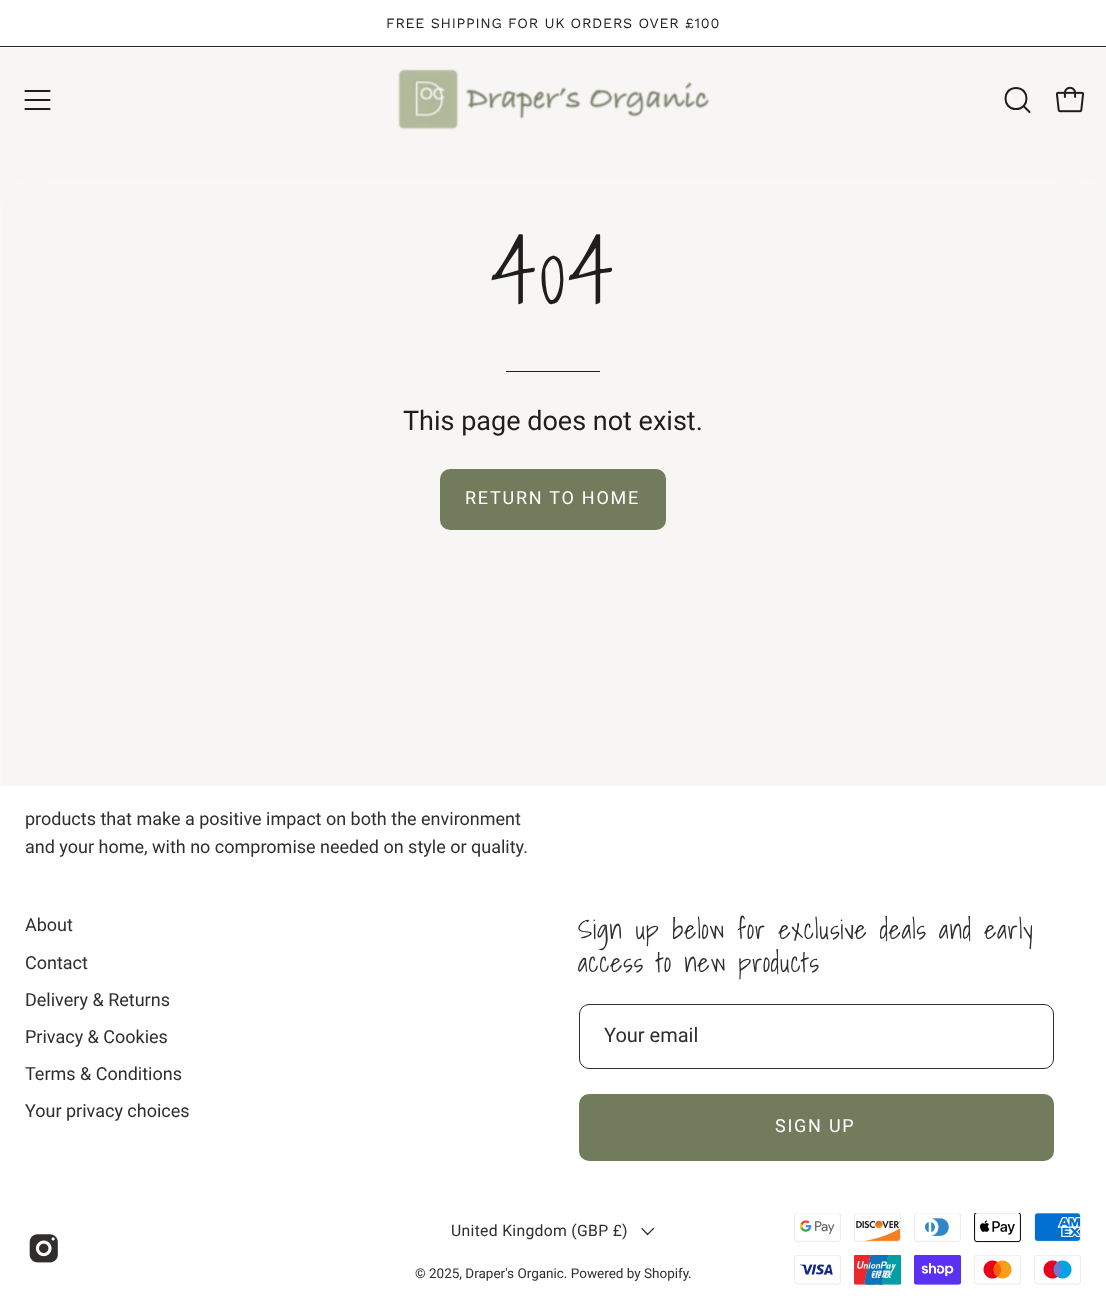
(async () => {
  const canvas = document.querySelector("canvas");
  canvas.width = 1106;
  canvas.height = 1306;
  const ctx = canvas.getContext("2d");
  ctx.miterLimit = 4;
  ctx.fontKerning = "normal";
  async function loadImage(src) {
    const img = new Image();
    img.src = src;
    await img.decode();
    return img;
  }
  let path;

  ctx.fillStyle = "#f7f6f4";
  ctx.fillRect(0, 0, 1106, 1306);
  ctx.fillStyle = "#ffffff";
  ctx.fillRect(0, 0, 1106, 48);
  ctx.fillStyle = "#252121";
  ctx.fillRect(0, 46, 1106, 1);
  path = new Path2D("M25.5 100H49.5M25.5 91H49.5M25.5 109H49.5");
  ctx.strokeStyle = "#1e1e1e";
  ctx.lineWidth = 2.2;
  ctx.lineCap = "round";
  ctx.lineJoin = "round";
  ctx.stroke(path);
  ctx.drawImage(await loadImage("img/1.png"), 398, 69, 312, 61);
  path = new Path2D("M1016 109C1030 109 1030 88 1016 88C1002 88 1002 109 1016 109ZM1023.5 106L1029.5 112");
  ctx.lineWidth = 2;
  ctx.stroke(path);
  ctx.drawImage(await loadImage("img/2.png"), 1055, 86, 30, 27);
  ctx.fillStyle = "#ffffff";
  ctx.fillRect(0, 786, 1106, 520);
  ctx.filter = "blur(15.5px)";
  ctx.beginPath();
  ctx.rect(13, 195, 1081, 610);
  ctx.fill();
  ctx.filter = "none";
  ctx.fillStyle = "#f7f6f4";
  ctx.fillRect(2, 184, 1103, 602);
  ctx.fillStyle = "#1e1e1e";
  ctx.fillRect(506, 371, 94, 1);
  ctx.fillStyle = "#727c5c";
  ctx.beginPath();
  ctx.roundRect(440, 469, 226, 61, 10);
  ctx.fill();
  ctx.beginPath();
  ctx.roundRect(579.5, 1004.5, 474, 64, 9.5);
  ctx.strokeStyle = "#302d2d";
  ctx.lineWidth = 1;
  ctx.lineJoin = "miter";
  ctx.stroke();
  ctx.beginPath();
  ctx.roundRect(579, 1094, 475, 67, 10);
  ctx.fill();
  ctx.drawImage(await loadImage("img/3.png"), 29, 1234, 29, 29);
  path = new Path2D("M653.5 1228.5L647.5 1234.5L642 1228.5");
  ctx.lineWidth = 1.2;
  ctx.lineJoin = "round";
  ctx.stroke(path);
  ctx.drawImage(await loadImage("img/4.png"), 794, 1213, 47, 29);
  ctx.drawImage(await loadImage("img/5.png"), 854, 1213, 47, 29);
  ctx.drawImage(await loadImage("img/6.png"), 914, 1213, 47, 29);
  ctx.drawImage(await loadImage("img/7.png"), 974, 1213, 47, 30);
  ctx.drawImage(await loadImage("img/8.png"), 1034, 1213, 47, 29);
  ctx.drawImage(await loadImage("img/9.png"), 794, 1255, 47, 30);
  ctx.drawImage(await loadImage("img/10.png"), 854, 1255, 47, 30);
  ctx.drawImage(await loadImage("img/11.png"), 914, 1255, 47, 30);
  ctx.drawImage(await loadImage("img/12.png"), 974, 1255, 47, 30);
  ctx.drawImage(await loadImage("img/13.png"), 1034, 1255, 47, 30);
  ctx.letterSpacing = "0.7px";
  ctx.font = "14.25px Work Sans";
  ctx.fillStyle = "#252121";
  ctx.fillText("FREE SHIPPING FOR UK ORDERS OVER £100", 386, 28);
  ctx.letterSpacing = "2px";
  ctx.font = "90px Shadows Into Light";
  ctx.fillStyle = "#1e1e1e";
  ctx.fillText("404", 491, 304);
  ctx.letterSpacing = "0px";
  ctx.font = "27px Roboto";
  ctx.fillText("This page does not exist.", 403, 430);
  ctx.letterSpacing = "1.75px";
  ctx.font = "18px Roboto";
  ctx.fillStyle = "#ffffff";
  ctx.fillText("RETURN TO HOME", 465, 504);
  ctx.letterSpacing = "0px";
  ctx.fillStyle = "#302d2d";
  for (const [text, x, y] of [
    ["products that make a positive impact on both the environment", 25, 825],
    ["and your home, with no compromise needed on style or quality.", 25, 853],
    ["About", 25, 931],
    ["Contact", 25, 969],
    ["Delivery & Returns", 25, 1006],
    ["Privacy & Cookies", 25, 1043],
    ["Terms & Conditions", 25, 1080],
    ["Your privacy choices", 25, 1117],
  ]) {
    ctx.fillText(text, x, y);
  }
  ctx.letterSpacing = "0.65px";
  ctx.font = "26.4px Shadows Into Light";
  ctx.fillText("Sign up below for exclusive deals and early", 578, 939);
  ctx.fillText("access to new products", 578, 972);
  ctx.letterSpacing = "0px";
  ctx.font = "20px Roboto";
  ctx.fillText("Your email", 604, 1042);
  ctx.letterSpacing = "1.75px";
  ctx.font = "18px Roboto";
  ctx.fillStyle = "#ffffff";
  ctx.fillText("SIGN UP", 775, 1132);
  ctx.letterSpacing = "0.3px";
  ctx.font = "15.75px Roboto";
  ctx.fillStyle = "#302d2d";
  ctx.fillText("United Kingdom (GBP £)", 451, 1236);
  ctx.letterSpacing = "0px";
  ctx.font = "13.5px Roboto";
  ctx.fillText("© 2025, Draper's Organic. Powered by Shopify", 415, 1278);
  ctx.fillText(".", 688, 1278);
})();
